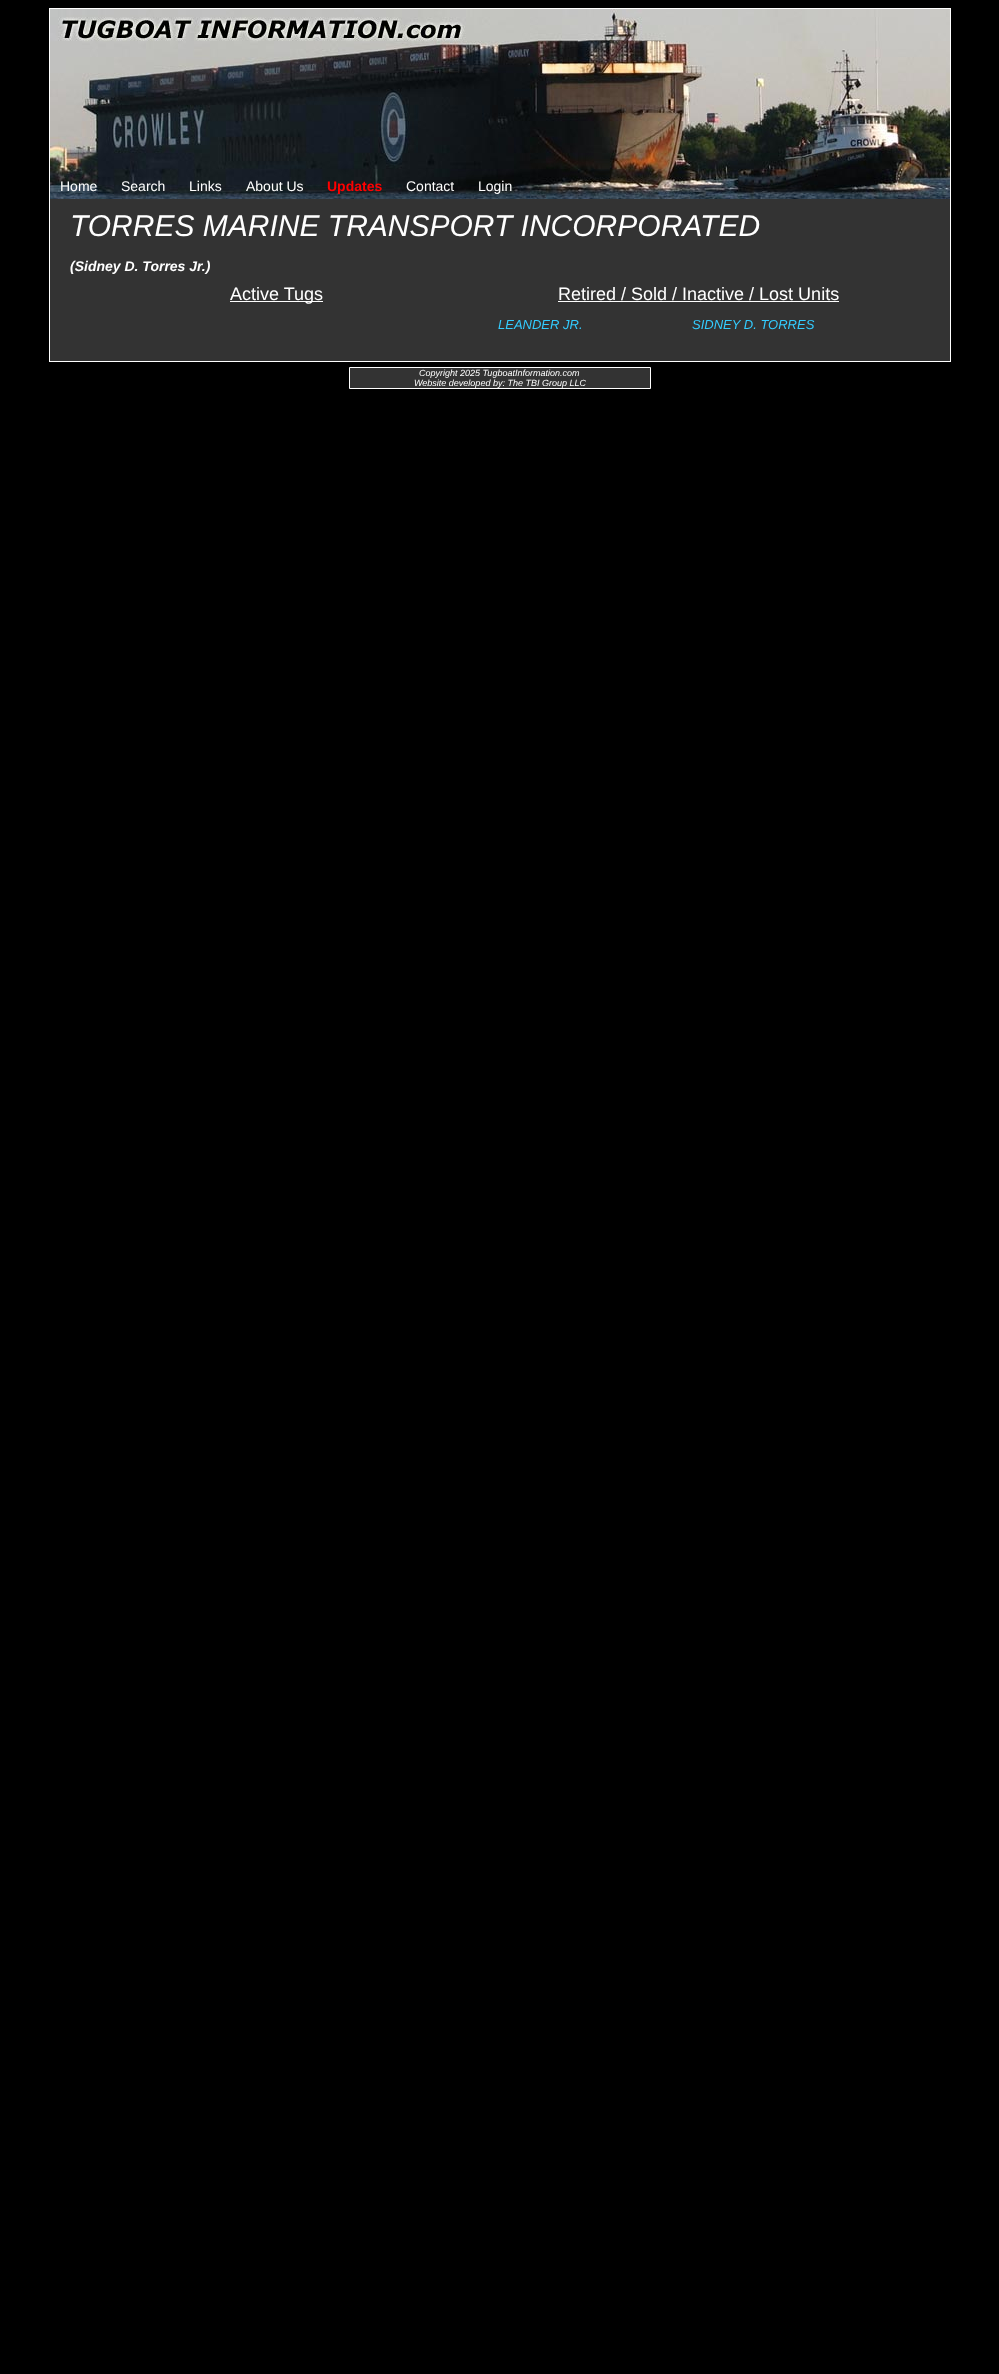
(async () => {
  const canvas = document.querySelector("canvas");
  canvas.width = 999;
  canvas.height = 2374;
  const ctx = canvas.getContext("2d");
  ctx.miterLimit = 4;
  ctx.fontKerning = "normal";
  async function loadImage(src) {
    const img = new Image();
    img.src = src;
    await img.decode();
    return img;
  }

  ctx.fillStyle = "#000000";
  ctx.fillRect(0, 0, 999, 2374);
  ctx.drawImage(await loadImage("img/1.png"), 50, 9, 900, 190);
  for (const [x, y, w, h, color] of [
    [49, 8, 902, 1, "#ffffff"],
    [950, 8, 1, 191, "#ffffff"],
    [49, 8, 1, 191, "#ffffff"],
    [50, 199, 900, 162, "#333333"],
    [950, 199, 1, 163, "#ffffff"],
    [49, 361, 902, 1, "#ffffff"],
    [49, 199, 1, 163, "#ffffff"],
    [230, 301, 93, 1, "#ffffff"],
    [558, 301, 281, 1, "#ffffff"],
  ]) {
    ctx.fillStyle = color;
    ctx.fillRect(x, y, w, h);
  }
  ctx.fillStyle = "#333333";
  ctx.beginPath();
  ctx.rect(349.5, 367.5, 301, 21);
  ctx.fill();
  ctx.strokeStyle = "#ffffff";
  ctx.stroke();
  ctx.font = "14px Liberation Sans";
  ctx.fillStyle = "#ffffff";
  for (const [text, x, y] of [
    ["Home", 60, 191],
    ["Search", 121, 191],
    ["Links", 189, 191],
    ["About Us", 246, 191],
  ]) {
    ctx.fillText(text, x, y);
  }
  ctx.font = "bold 14px Liberation Sans";
  ctx.fillStyle = "#ff0000";
  ctx.fillText("Updates", 327, 191);
  ctx.font = "14px Liberation Sans";
  ctx.fillStyle = "#ffffff";
  ctx.fillText("Contact", 406, 191);
  ctx.fillText("Login", 478, 191);
  ctx.font = "italic 30px Liberation Sans";
  ctx.fillText("TORRES MARINE TRANSPORT INCORPORATED", 70, 236);
  ctx.font = "italic bold 14px Liberation Sans";
  ctx.fillText("(Sidney D. Torres Jr.)", 70, 271);
  ctx.font = "18px Liberation Sans";
  ctx.fillText("Active Tugs", 230, 300);
  ctx.fillText("Retired / Sold / Inactive / Lost Units", 558, 300);
  ctx.font = "italic 13px Liberation Sans";
  ctx.fillStyle = "#33ccff";
  ctx.fillText("LEANDER JR.", 498, 329);
  ctx.fillText("SIDNEY D. TORRES", 692, 329);
  ctx.font = "italic 9px Liberation Sans";
  ctx.fillStyle = "#ffffff";
  ctx.fillText("Copyright 2025 TugboatInformation.com", 419, 376);
  ctx.fillText("Website developed by: The TBI Group LLC", 414, 386);
})();
